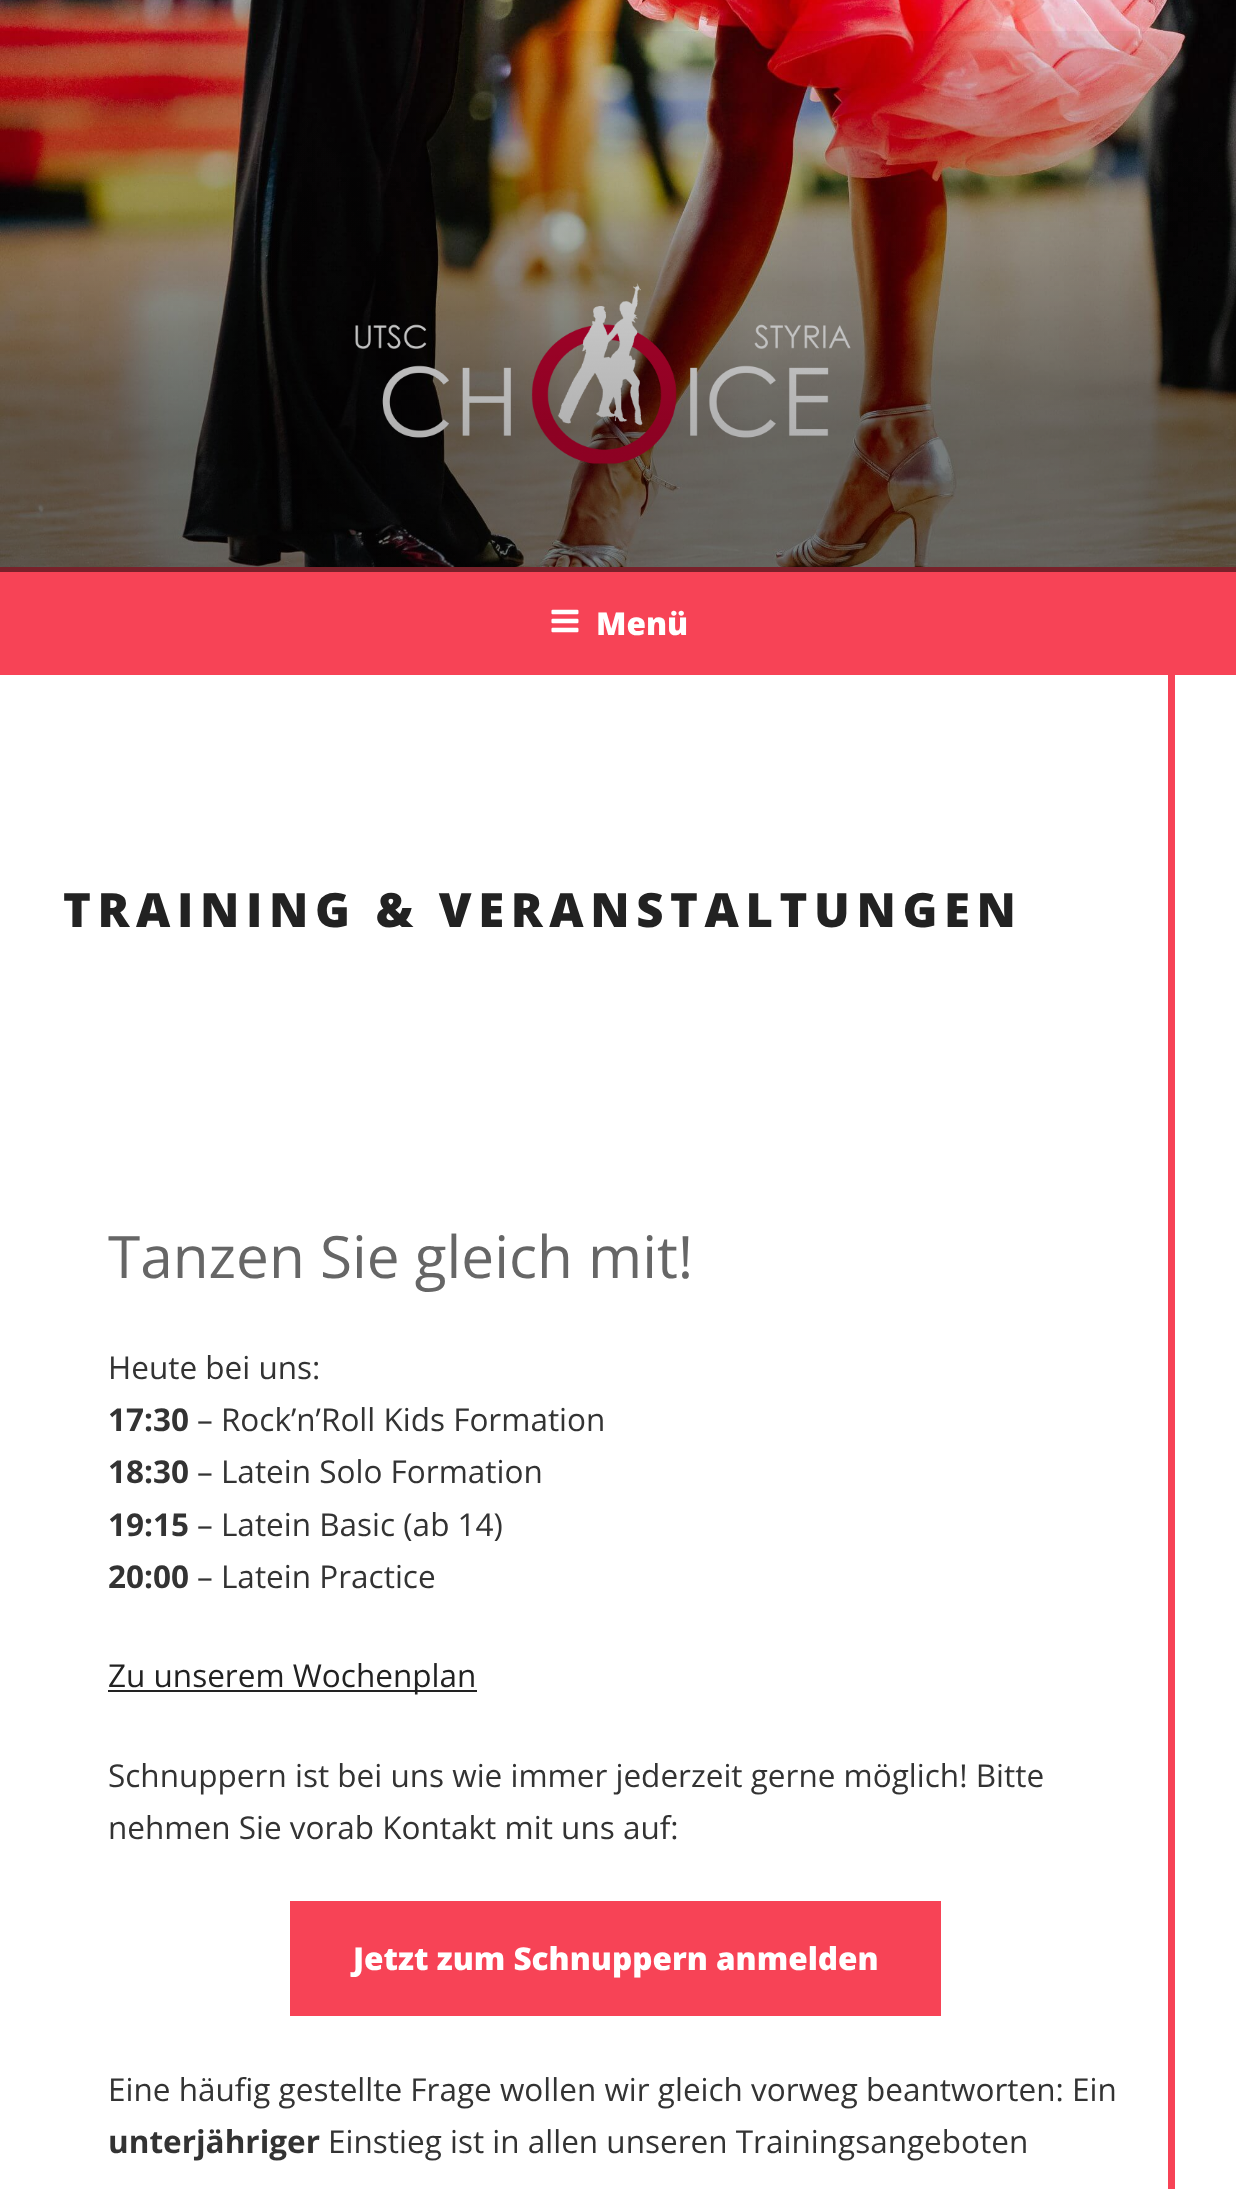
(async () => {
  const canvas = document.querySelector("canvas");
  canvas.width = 1236;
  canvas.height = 2189;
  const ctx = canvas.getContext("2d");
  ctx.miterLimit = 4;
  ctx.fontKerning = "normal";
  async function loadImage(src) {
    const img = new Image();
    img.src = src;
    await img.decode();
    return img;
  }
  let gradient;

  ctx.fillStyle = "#ffffff";
  ctx.fillRect(0, 0, 1236, 2189);
  ctx.drawImage(await loadImage("img/1.png"), 0, 0, 1236, 567);
  ctx.fillStyle = "#f74356";
  ctx.fillRect(0, 567, 1236, 108);
  gradient = ctx.createLinearGradient(619, 0, 619, 572);
  gradient.addColorStop(0, "rgba(0, 0, 0, 0)");
  gradient.addColorStop(0.75, "rgba(0, 0, 0, 0.3)");
  gradient.addColorStop(1, "rgba(0, 0, 0, 0.3)");
  ctx.fillStyle = gradient;
  ctx.fillRect(0, 31, 1236, 541);
  ctx.drawImage(await loadImage("img/2.png"), 355, 283, 496, 181);
  ctx.fillRect(0, 31, 1236, 541);
  ctx.drawImage(await loadImage("img/3.png"), 551, 609, 28, 24);
  for (const [x, y, w, h, color] of [
    [1168, 675, 7, 1514, "#f74356"],
    [108, 1690, 369, 2, "#222222"],
    [290, 1901, 651, 115, "#f74356"],
  ]) {
    ctx.fillStyle = color;
    ctx.fillRect(x, y, w, h);
  }
  ctx.font = "800 31.5px Open Sans";
  ctx.fillStyle = "#ffffff";
  ctx.fillText("Menü", 596, 635);
  ctx.letterSpacing = "6.6px";
  ctx.font = "800 47.25px Open Sans";
  ctx.fillStyle = "#222222";
  ctx.fillText("TRAINING & VERANSTALTUNGEN", 63, 927);
  ctx.letterSpacing = "0px";
  ctx.font = "58.5px Open Sans";
  ctx.fillStyle = "#666666";
  ctx.fillText("Tanzen Sie gleich mit!", 108, 1278);
  ctx.font = "31.5px Open Sans";
  ctx.fillStyle = "#333333";
  ctx.fillText("Heute bei uns:", 108, 1379);
  ctx.font = "bold 31.5px Open Sans";
  ctx.fillText("17:30", 108, 1431);
  ctx.font = "31.5px Open Sans";
  ctx.fillText("– Rock’n’Roll Kids Formation", 197, 1431);
  ctx.font = "bold 31.5px Open Sans";
  ctx.fillText("18:30", 108, 1483);
  ctx.font = "31.5px Open Sans";
  ctx.fillText("– Latein Solo Formation", 197, 1483);
  ctx.font = "bold 31.5px Open Sans";
  ctx.fillText("19:15", 108, 1536);
  ctx.font = "31.5px Open Sans";
  ctx.fillText("– Latein Basic (ab 14)", 197, 1536);
  ctx.font = "bold 31.5px Open Sans";
  ctx.fillText("20:00", 108, 1588);
  ctx.font = "31.5px Open Sans";
  ctx.fillText("– Latein Practice", 197, 1588);
  ctx.fillStyle = "#222222";
  ctx.fillText("Zu unserem Wochenplan", 108, 1687);
  ctx.fillStyle = "#333333";
  ctx.fillText("Schnuppern ist bei uns wie immer jederzeit gerne möglich! Bitte", 108, 1787);
  ctx.fillText("nehmen Sie vorab Kontakt mit uns auf:", 108, 1839);
  ctx.font = "800 31.5px Open Sans";
  ctx.fillStyle = "#ffffff";
  ctx.fillText("Jetzt zum Schnuppern anmelden", 353, 1970);
  ctx.font = "31.5px Open Sans";
  ctx.fillStyle = "#333333";
  ctx.fillText("Eine häufig gestellte Frage wollen wir gleich vorweg beantworten: Ein", 108, 2101);
  ctx.font = "bold 31.5px Open Sans";
  ctx.fillText("unterjähriger", 108, 2153);
  ctx.font = "31.5px Open Sans";
  ctx.fillText("Einstieg ist in allen unseren Trainingsangeboten", 328, 2153);
})();
